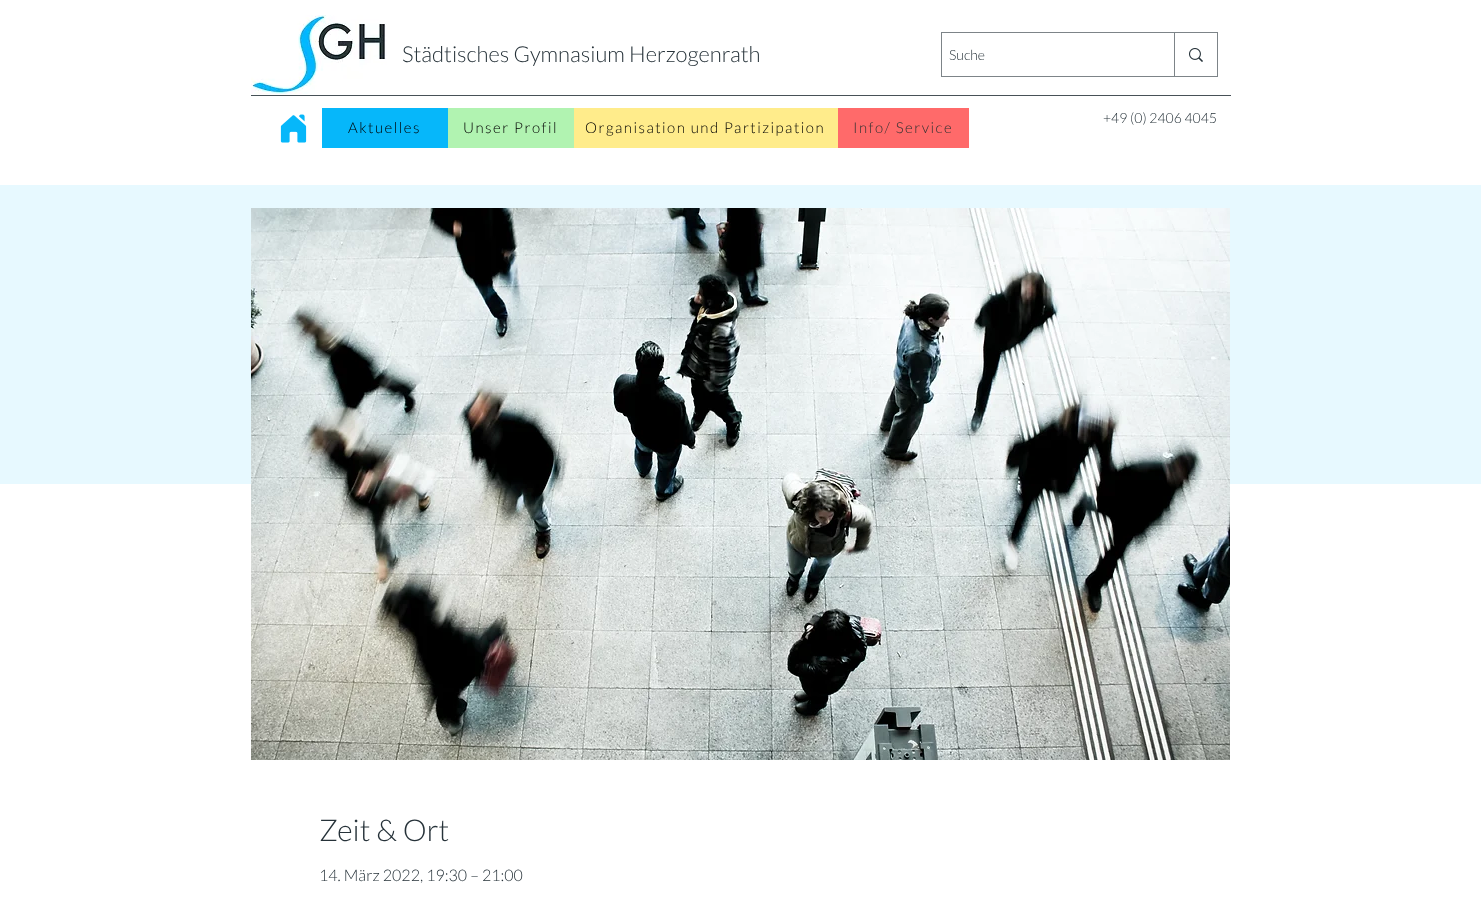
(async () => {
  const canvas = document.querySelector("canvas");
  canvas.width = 1481;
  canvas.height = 898;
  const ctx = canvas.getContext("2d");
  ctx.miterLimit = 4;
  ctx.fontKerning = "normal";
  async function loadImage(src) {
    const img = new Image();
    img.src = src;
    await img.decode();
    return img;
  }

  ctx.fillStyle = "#ffffff";
  ctx.fillRect(0, 0, 1481, 898);
  ctx.drawImage(await loadImage("img/1.png"), 251, 15, 136, 79);
  ctx.strokeStyle = "#7d8488";
  ctx.strokeRect(941.5, 32.5, 276, 44);
  ctx.fillStyle = "#7d8488";
  ctx.fillRect(1174, 33, 1, 43);
  ctx.drawImage(await loadImage("img/2.png"), 1189, 48, 14, 14);
  ctx.fillStyle = "#475157";
  ctx.fillRect(251, 95, 980, 1);
  ctx.drawImage(await loadImage("img/3.png"), 280, 114, 27, 29);
  for (const [x, y, w, h, color] of [
    [322, 108, 126, 40, "#06b7fa"],
    [448, 108, 126, 40, "#b1f3b1"],
    [574, 108, 264, 40, "#ffec8b"],
    [838, 108, 131, 40, "#ff6a6a"],
    [0, 185, 1481, 299, "#e7f9ff"],
  ]) {
    ctx.fillStyle = color;
    ctx.fillRect(x, y, w, h);
  }
  ctx.drawImage(await loadImage("img/4.png"), 251, 208, 979, 552);
  ctx.font = "300 22px Lato";
  ctx.fillStyle = "#263239";
  ctx.fillText("Städtisches Gymnasium Herzogenrath", 402, 62);
  ctx.font = "300 14px Lato";
  ctx.fillText("Suche", 949, 60);
  ctx.letterSpacing = "1.5px";
  ctx.font = "300 15px Lato";
  ctx.fillStyle = "#000000";
  for (const [text, x, y] of [
    ["Aktuelles", 348, 133],
    ["Unser Profil", 463, 133],
    ["Organisation und Partizipation", 585, 133],
  ]) {
    ctx.fillText(text, x, y);
  }
  ctx.fillStyle = "#323232";
  ctx.fillText("Info/ Service", 853, 133);
  ctx.letterSpacing = "0px";
  ctx.font = "300 14px Lato";
  ctx.fillStyle = "#263239";
  ctx.fillText("+49 (0) 2406 4045", 1103, 123);
  ctx.font = "300 30px Lato";
  ctx.fillText("Zeit & Ort", 319, 841);
  ctx.font = "300 16px Lato";
  ctx.fillText("14. März 2022, 19:30 – 21:00", 319, 881);
})();
